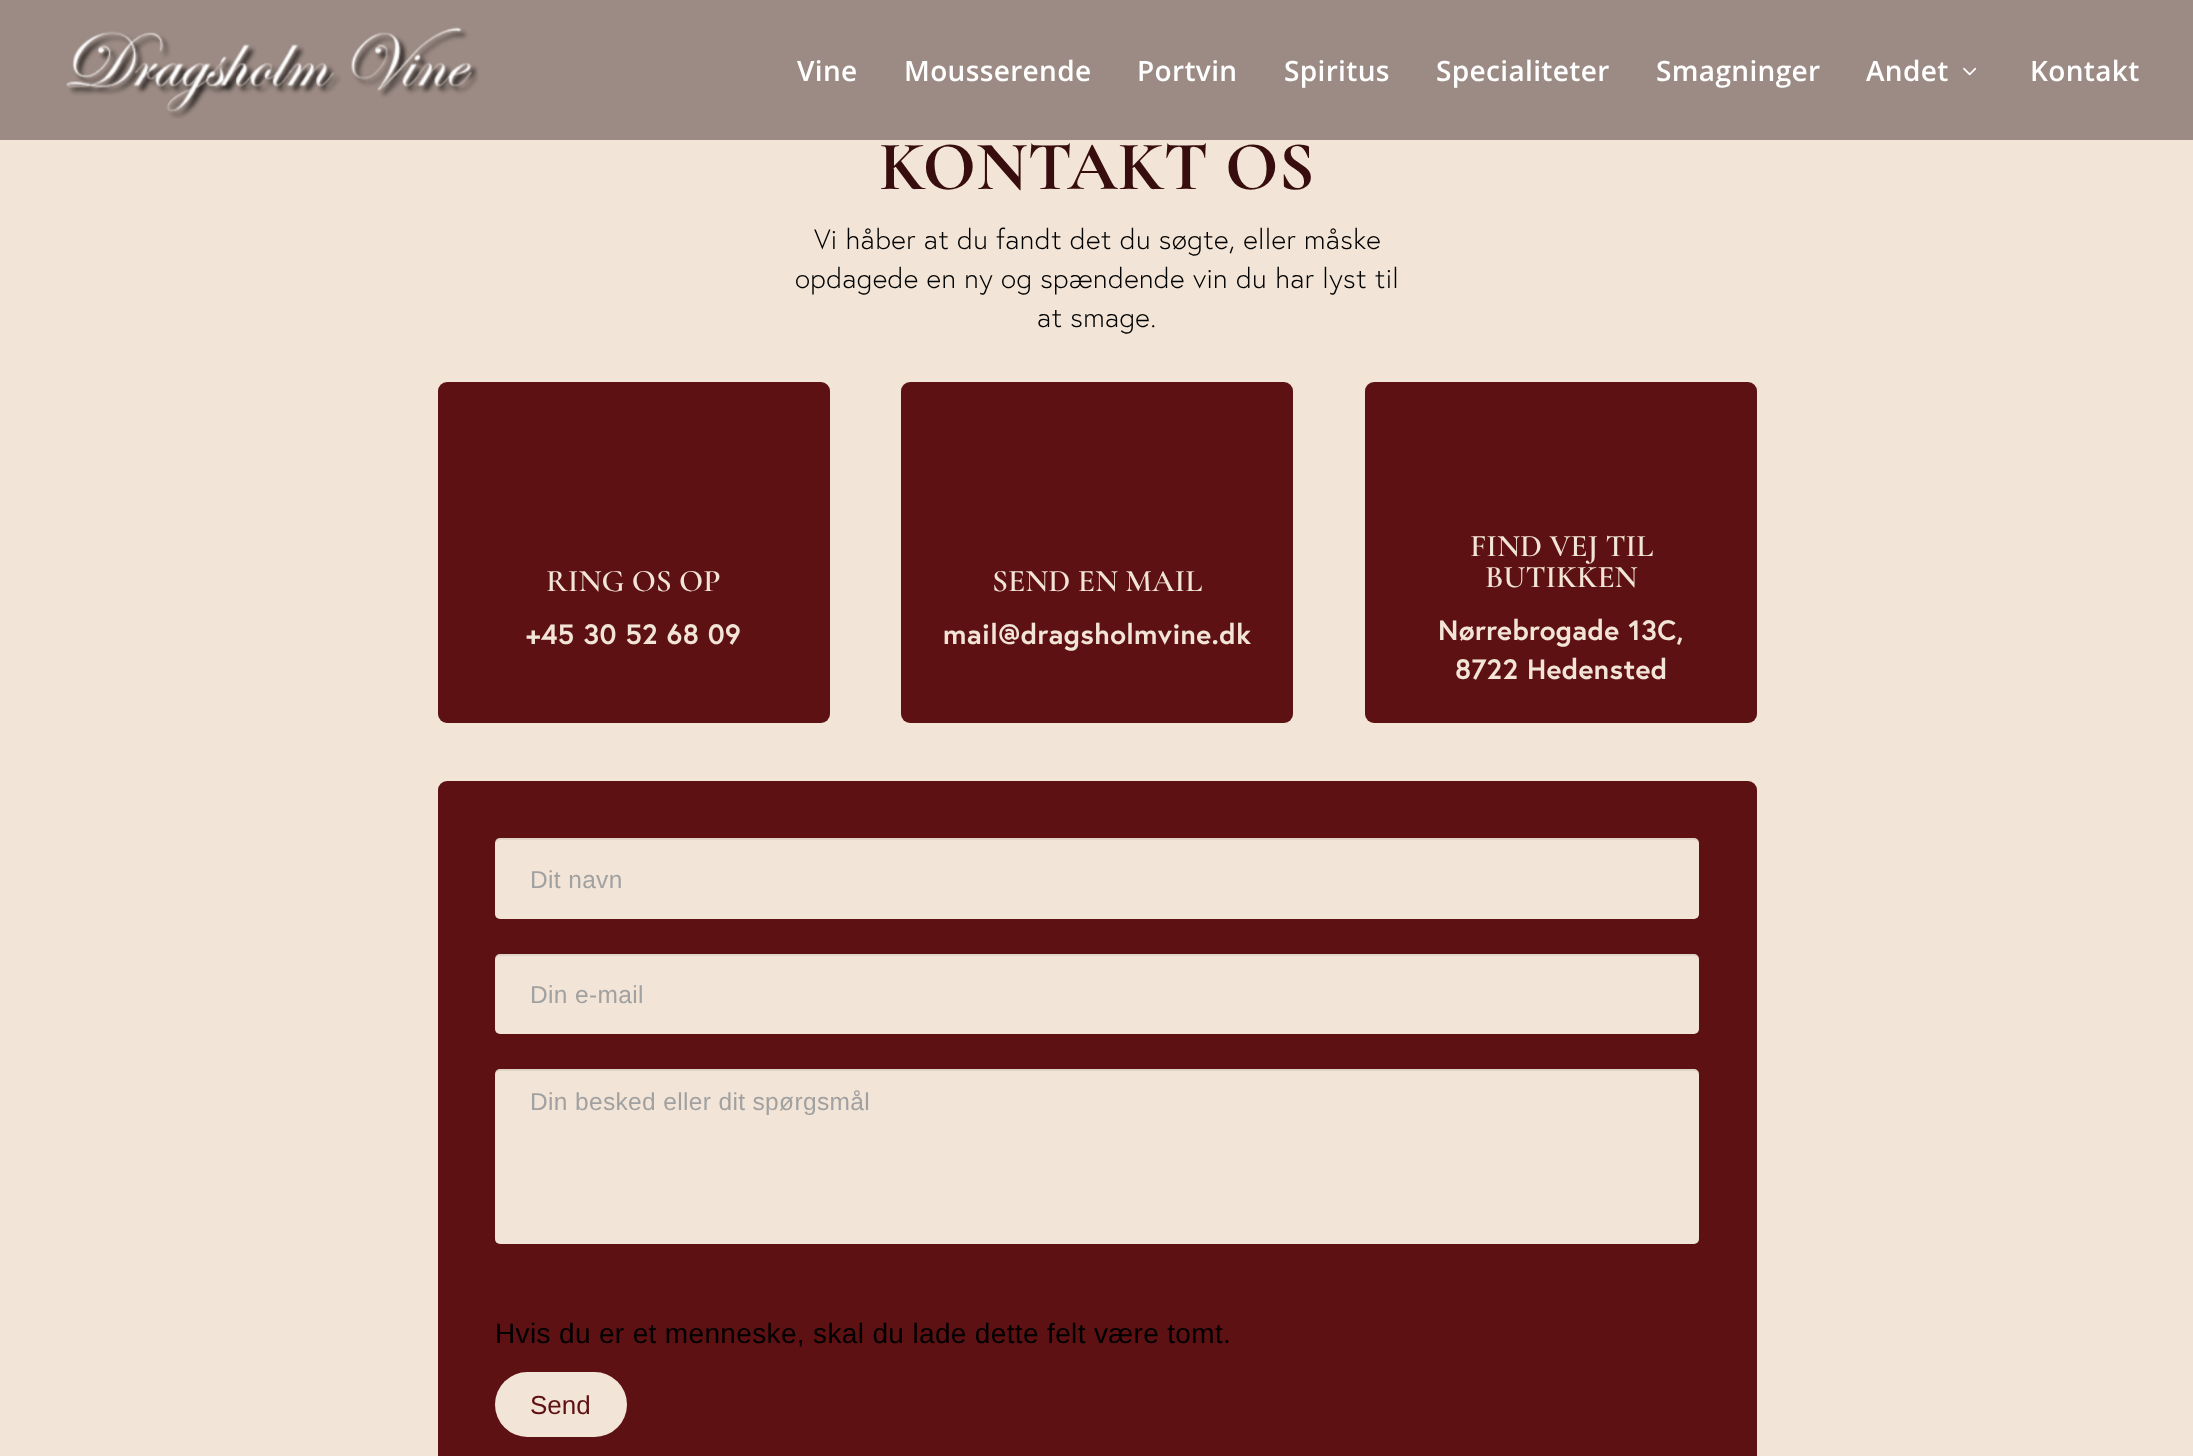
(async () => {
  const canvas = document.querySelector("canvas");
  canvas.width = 2193;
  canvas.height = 1456;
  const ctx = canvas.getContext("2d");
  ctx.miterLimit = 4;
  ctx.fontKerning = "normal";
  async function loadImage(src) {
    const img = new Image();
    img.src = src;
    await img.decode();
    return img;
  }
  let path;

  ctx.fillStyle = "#f2e5d7";
  ctx.fillRect(0, 0, 2193, 1456);
  ctx.fillStyle = "#9c8b84";
  ctx.fillRect(0, 0, 2193, 140);
  ctx.drawImage(await loadImage("img/1.png"), 66, 27, 413, 92);
  ctx.drawImage(await loadImage("img/2.png"), 1963, 67, 14, 9);
  ctx.fillStyle = "#5e1112";
  ctx.beginPath();
  ctx.roundRect(438, 382, 392, 341, 9);
  ctx.fill();
  ctx.beginPath();
  ctx.roundRect(901, 382, 392, 341, 9);
  ctx.fill();
  ctx.beginPath();
  ctx.roundRect(1365, 382, 392, 341, 9);
  ctx.fill();
  ctx.beginPath();
  ctx.roundRect(438, 781, 1319, 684, 9);
  ctx.fill();
  ctx.fillStyle = "#f2e5d7";
  ctx.beginPath();
  ctx.roundRect(495, 838, 1204, 81, 5);
  ctx.fill();
  ctx.fillStyle = "rgba(0, 0, 0, 0.07)";
  path = new Path2D("M500 840H1694C1697 840 1699 842 1699 845V843C1699 840 1697 838 1694 838H500C497 838 495 840 495 843V845C495 842 498 840 500 840Z");
  ctx.fill(path);
  ctx.fillStyle = "#f2e5d7";
  ctx.beginPath();
  ctx.roundRect(495, 954, 1204, 80, 5);
  ctx.fill();
  ctx.fillStyle = "rgba(0, 0, 0, 0.07)";
  path = new Path2D("M500 956H1694C1697 956 1699 958 1699 961V959C1699 956 1697 954 1694 954H500C497 954 495 956 495 959V961C495 958 498 956 500 956Z");
  ctx.fill(path);
  ctx.fillStyle = "#f2e5d7";
  ctx.beginPath();
  ctx.roundRect(495, 1069, 1204, 175, 5);
  ctx.fill();
  ctx.fillStyle = "rgba(0, 0, 0, 0.07)";
  path = new Path2D("M500 1071H1694C1697 1071 1699 1073 1699 1076V1074C1699 1071 1697 1069 1694 1069H500C497 1069 495 1071 495 1074V1076C495 1073 498 1071 500 1071Z");
  ctx.fill(path);
  ctx.fillStyle = "#f2e5d7";
  ctx.beginPath();
  ctx.roundRect(495, 1372, 132, 65, 32.5);
  ctx.fill();
  ctx.letterSpacing = "0.35px";
  ctx.font = "600 28px Open Sans";
  ctx.fillStyle = "#ffffff";
  for (const [text, x, y] of [
    ["Vine", 797, 81],
    ["Mousserende", 904, 81],
    ["Portvin", 1137, 81],
    ["Spiritus", 1284, 81],
    ["Specialiteter", 1436, 81],
    ["Smagninger", 1656, 81],
    ["Andet", 1866, 81],
    ["Kontakt", 2030, 81],
  ]) {
    ctx.fillText(text, x, y);
  }
  ctx.letterSpacing = "0px";
  ctx.font = "bold 70px Cormorant Garamond";
  ctx.fillStyle = "#380d0e";
  ctx.fillText("KONTAKT OS", 879, 189);
  ctx.letterSpacing = "0.35px";
  ctx.font = "300 28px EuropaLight";
  ctx.fillStyle = "#000000";
  for (const [text, x, y] of [
    ["Vi håber at du fandt det du søgte, eller måske", 814, 249],
    ["opdagede en ny og spændende vin du har lyst til", 795, 288],
    ["at smage.", 1037, 327],
  ]) {
    ctx.fillText(text, x, y);
  }
  ctx.letterSpacing = "0px";
  ctx.font = "600 31.5px Cormorant Garamond";
  ctx.fillStyle = "#f2e5d7";
  ctx.fillText("RING OS OP", 546, 591);
  ctx.letterSpacing = "0.35px";
  ctx.font = "bold 28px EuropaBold";
  ctx.fillText("+45 30 52 68 09", 526, 644);
  ctx.letterSpacing = "0px";
  ctx.font = "600 31.5px Cormorant Garamond";
  ctx.fillText("SEND EN MAIL", 992, 591);
  ctx.letterSpacing = "0.35px";
  ctx.font = "bold 28px EuropaBold";
  ctx.fillText("mail@dragsholmvine.dk", 943, 644);
  ctx.letterSpacing = "0px";
  ctx.font = "600 31.5px Cormorant Garamond";
  ctx.fillText("FIND VEJ TIL", 1470, 556);
  ctx.fillText("BUTIKKEN", 1485, 587);
  ctx.letterSpacing = "0.35px";
  ctx.font = "bold 28px EuropaBold";
  ctx.fillText("Nørrebrogade 13C,", 1438, 640);
  ctx.fillText("8722 Hedensted", 1455, 679);
  ctx.font = "24.5px Liberation Sans";
  ctx.fillStyle = "#a1a1a1";
  for (const [text, x, y] of [
    ["Dit navn", 530, 888],
    ["Din e-mail", 530, 1003],
    ["Din besked eller dit spørgsmål", 530, 1110],
  ]) {
    ctx.fillText(text, x, y);
  }
  ctx.font = "28px Liberation Sans";
  ctx.fillStyle = "#000000";
  ctx.fillText("Hvis du er et menneske, skal du lade dette felt være tomt.", 495, 1343);
  ctx.letterSpacing = "0px";
  ctx.font = "26px Liberation Sans";
  ctx.fillStyle = "#5e1112";
  ctx.fillText("Send", 530, 1414);
})();
